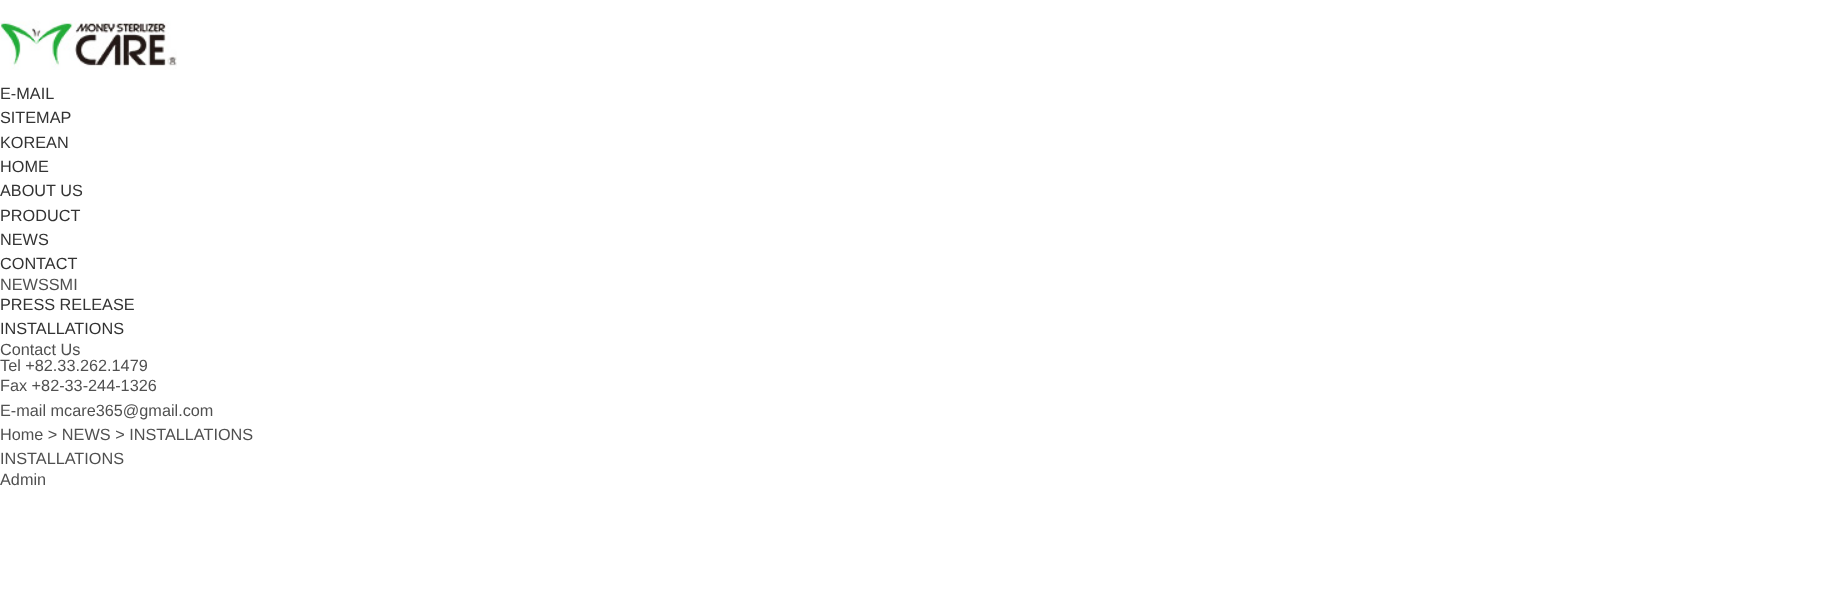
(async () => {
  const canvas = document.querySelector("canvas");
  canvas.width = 1826;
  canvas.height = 611;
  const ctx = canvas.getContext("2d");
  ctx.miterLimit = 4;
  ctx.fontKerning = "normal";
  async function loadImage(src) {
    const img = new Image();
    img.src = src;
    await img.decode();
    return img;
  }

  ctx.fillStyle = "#ffffff";
  ctx.fillRect(0, 0, 1826, 611);
  ctx.drawImage(await loadImage("img/1.png"), 0, 20, 177, 50);
  ctx.font = "16.25px Liberation Sans";
  ctx.fillStyle = "#333333";
  for (const [text, x, y] of [
    ["E-MAIL", 0, 99],
    ["SITEMAP", 0, 123],
    ["KOREAN", 0, 148],
    ["HOME", 0, 172],
    ["ABOUT US", 0, 196],
    ["PRODUCT", 0, 221],
    ["NEWS", 0, 245],
    ["CONTACT", 0, 269],
  ]) {
    ctx.fillText(text, x, y);
  }
  ctx.fillStyle = "#505050";
  ctx.fillText("NEWSSMI", 0, 290);
  ctx.fillStyle = "#333333";
  ctx.fillText("PRESS RELEASE", 0, 310);
  ctx.fillText("INSTALLATIONS", 0, 334);
  ctx.fillStyle = "#505050";
  for (const [text, x, y] of [
    ["Contact Us", 0, 355],
    ["Tel +82.33.262.1479", 0, 371],
    ["Fax +82-33-244-1326", 0, 391],
    ["E-mail mcare365@gmail.com", 0, 416],
    ["Home > NEWS > INSTALLATIONS", 0, 440],
    ["INSTALLATIONS", 0, 464],
    ["Admin", 0, 485],
  ]) {
    ctx.fillText(text, x, y);
  }
})();
